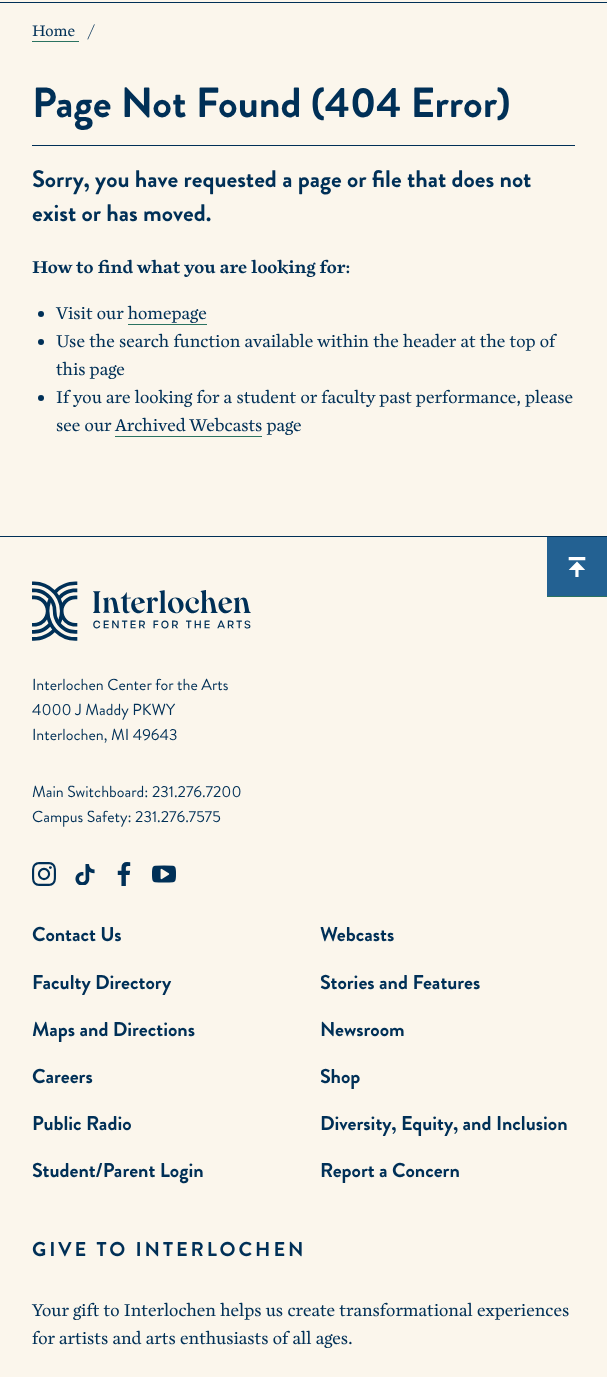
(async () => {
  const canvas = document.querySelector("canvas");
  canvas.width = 607;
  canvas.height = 1377;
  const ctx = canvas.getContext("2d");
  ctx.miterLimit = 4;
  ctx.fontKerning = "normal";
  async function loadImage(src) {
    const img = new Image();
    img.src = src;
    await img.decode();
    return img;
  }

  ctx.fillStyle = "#fbf6ec";
  ctx.fillRect(0, 0, 607, 1377);
  for (const [x, y, w, h, color] of [
    [0, 2, 607, 1, "#003057"],
    [32, 41, 47, 1, "#2a7361"],
    [32, 145, 543, 1, "#003057"],
  ]) {
    ctx.fillStyle = color;
    ctx.fillRect(x, y, w, h);
  }
  ctx.beginPath();
  ctx.arc(41, 314, 3, 0, Math.PI * 2);
  ctx.fill();
  ctx.fillStyle = "#2a7361";
  ctx.fillRect(128, 324, 79, 1);
  ctx.fillStyle = "#003057";
  ctx.beginPath();
  ctx.arc(41, 342, 3, 0, Math.PI * 2);
  ctx.fill();
  ctx.beginPath();
  ctx.arc(41, 398, 3, 0, Math.PI * 2);
  ctx.fill();
  for (const [x, y, w, h, color] of [
    [115, 436, 147, 1, "#2a7361"],
    [0, 536, 607, 1, "#003057"],
    [547, 537, 60, 59, "#236192"],
    [547, 596, 60, 1, "#2a7361"],
  ]) {
    ctx.fillStyle = color;
    ctx.fillRect(x, y, w, h);
  }
  ctx.drawImage(await loadImage("img/1.png"), 568, 557, 18, 20);
  ctx.drawImage(await loadImage("img/2.png"), 32, 581, 219, 60);
  ctx.drawImage(await loadImage("img/3.png"), 32, 862, 24, 24);
  ctx.drawImage(await loadImage("img/4.png"), 75, 864, 20, 21);
  ctx.drawImage(await loadImage("img/5.png"), 117, 862, 14, 24);
  ctx.drawImage(await loadImage("img/6.png"), 152, 865, 24, 18);
  ctx.font = "16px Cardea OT";
  ctx.fillStyle = "#003057";
  ctx.fillText("Home", 32, 36);
  ctx.fillText("/", 87, 36);
  ctx.font = "bold 42px Brandon Grotesque";
  ctx.fillText("Page Not Found (404 Error)", 32, 117);
  ctx.font = "bold 24px Brandon Grotesque";
  ctx.fillText("Sorry, you have requested a page or file that does not", 32, 187);
  ctx.fillText("exist or has moved.", 32, 221);
  ctx.font = "bold 18px Cardea OT";
  ctx.fillText("How to find what you are looking for:", 32, 273);
  ctx.font = "18px Cardea OT";
  for (const [text, x, y] of [
    ["Visit our homepage", 56, 319],
    ["Use the search function available within the header at the top of", 56, 347],
    ["this page", 56, 375],
    ["If you are looking for a student or faculty past performance, please", 56, 403],
    ["see our", 56, 431],
    ["Archived Webcasts page", 115, 431],
  ]) {
    ctx.fillText(text, x, y);
  }
  ctx.font = "16px Brandon Grotesque";
  for (const [text, x, y] of [
    ["Interlochen Center for the Arts", 32, 690],
    ["4000 J Maddy PKWY", 32, 715],
    ["Interlochen, MI 49643", 32, 740],
    ["Main Switchboard: 231.276.7200", 32, 797],
    ["Campus Safety: 231.276.7575", 32, 822],
  ]) {
    ctx.fillText(text, x, y);
  }
  ctx.font = "bold 20px Brandon Grotesque";
  for (const [text, x, y] of [
    ["Contact Us", 32, 941],
    ["Webcasts", 320, 941],
    ["Faculty Directory", 32, 989],
    ["Stories and Features", 320, 989],
    ["Maps and Directions", 32, 1036],
    ["Newsroom", 320, 1036],
    ["Careers", 32, 1083],
    ["Shop", 320, 1083],
    ["Public Radio", 32, 1130],
    ["Diversity, Equity, and Inclusion", 320, 1130],
    ["Student/Parent Login", 32, 1177],
    ["Report a Concern", 320, 1177],
  ]) {
    ctx.fillText(text, x, y);
  }
  ctx.letterSpacing = "2.9px";
  ctx.fillText("GIVE TO INTERLOCHEN", 32, 1256);
  ctx.letterSpacing = "0px";
  ctx.font = "18px Cardea OT";
  ctx.fillText("Your gift to Interlochen helps us create transformational experiences", 32, 1316);
  ctx.fillText("for artists and arts enthusiasts of all ages.", 32, 1344);
})();
